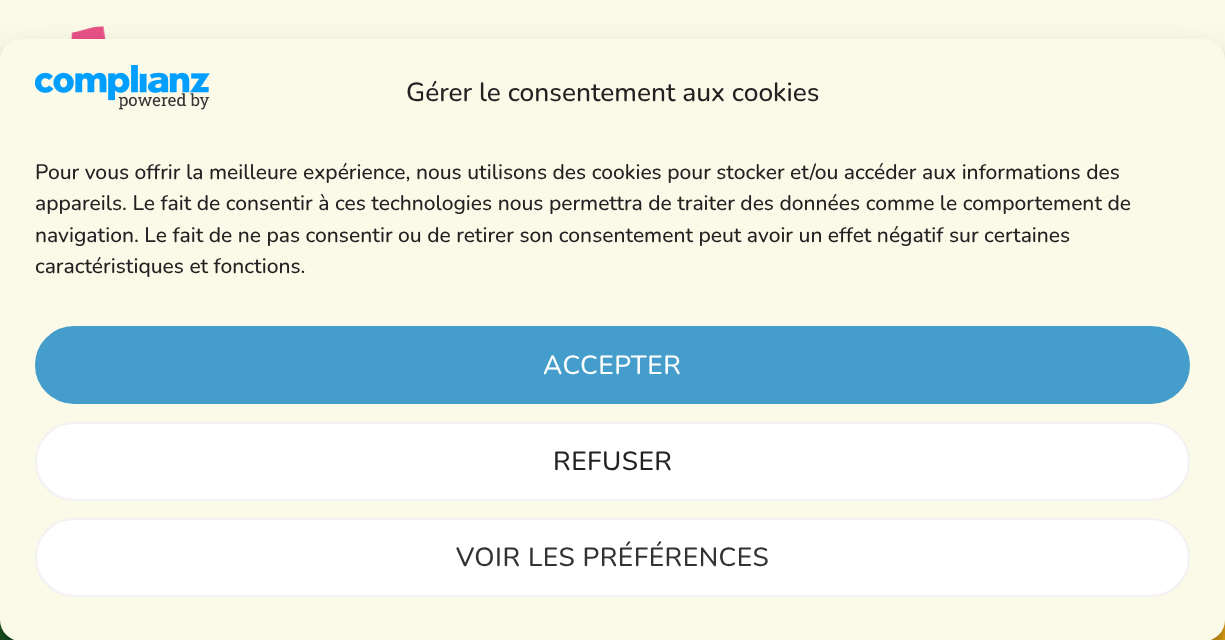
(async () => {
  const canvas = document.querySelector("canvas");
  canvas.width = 1225;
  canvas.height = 640;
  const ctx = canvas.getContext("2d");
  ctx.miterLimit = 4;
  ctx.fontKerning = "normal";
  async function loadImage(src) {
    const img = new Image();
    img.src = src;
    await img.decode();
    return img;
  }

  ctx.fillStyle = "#fbf9e8";
  ctx.fillRect(0, 0, 1225, 640);
  ctx.drawImage(await loadImage("img/1.png"), 70, 26, 36, 13);
  ctx.fillStyle = "#1b5824";
  ctx.fillRect(0, 620, 15, 20);
  ctx.fillStyle = "#f8b218";
  ctx.fillRect(1210, 620, 15, 20);
  ctx.fillStyle = "rgba(0, 0, 0, 0.23)";
  ctx.filter = "blur(5px)";
  ctx.beginPath();
  ctx.roundRect(0, 49, 1225, 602, 21);
  ctx.fill();
  ctx.filter = "none";
  ctx.fillStyle = "rgba(0, 0, 0, 0.19)";
  ctx.filter = "blur(17.5px)";
  ctx.beginPath();
  ctx.roundRect(0, 56, 1225, 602, 21);
  ctx.fill();
  ctx.filter = "none";
  ctx.fillStyle = "#fbf9e8";
  ctx.beginPath();
  ctx.roundRect(0, 39, 1225, 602, 21);
  ctx.fill();
  ctx.drawImage(await loadImage("img/2.png"), 35, 65, 175, 45);
  ctx.fillStyle = "#449dcb";
  ctx.beginPath();
  ctx.roundRect(36, 327, 1153, 76, 38);
  ctx.fill();
  ctx.strokeStyle = "#449dcb";
  ctx.lineWidth = 2;
  ctx.stroke();
  ctx.fillStyle = "#ffffff";
  ctx.beginPath();
  ctx.roundRect(36, 423, 1153, 77, 38.5);
  ctx.fill();
  ctx.strokeStyle = "#f2f2f2";
  ctx.stroke();
  ctx.beginPath();
  ctx.roundRect(36, 519, 1153, 77, 38.5);
  ctx.fill();
  ctx.stroke();
  ctx.font = "200 26.25px Nunito";
  ctx.fillStyle = "#222222";
  ctx.fillText("Gérer le consentement aux cookies", 406, 101);
  ctx.font = "200 21px Nunito";
  for (const [text, x, y] of [
    ["Pour vous offrir la meilleure expérience, nous utilisons des cookies pour stocker et/ou accéder aux informations des", 35, 179],
    ["appareils. Le fait de consentir à ces technologies nous permettra de traiter des données comme le comportement de", 35, 210],
    ["navigation. Le fait de ne pas consentir ou de retirer son consentement peut avoir un effet négatif sur certaines", 35, 242],
    ["caractéristiques et fonctions.", 35, 273],
  ]) {
    ctx.fillText(text, x, y);
  }
  ctx.letterSpacing = "0.5px";
  ctx.font = "200 26.25px Nunito";
  ctx.fillStyle = "#ffffff";
  ctx.fillText("ACCEPTER", 543, 374);
  ctx.fillStyle = "#222222";
  ctx.fillText("REFUSER", 553, 470);
  ctx.fillStyle = "#333333";
  ctx.fillText("VOIR LES PRÉFÉRENCES", 456, 566);
})();
